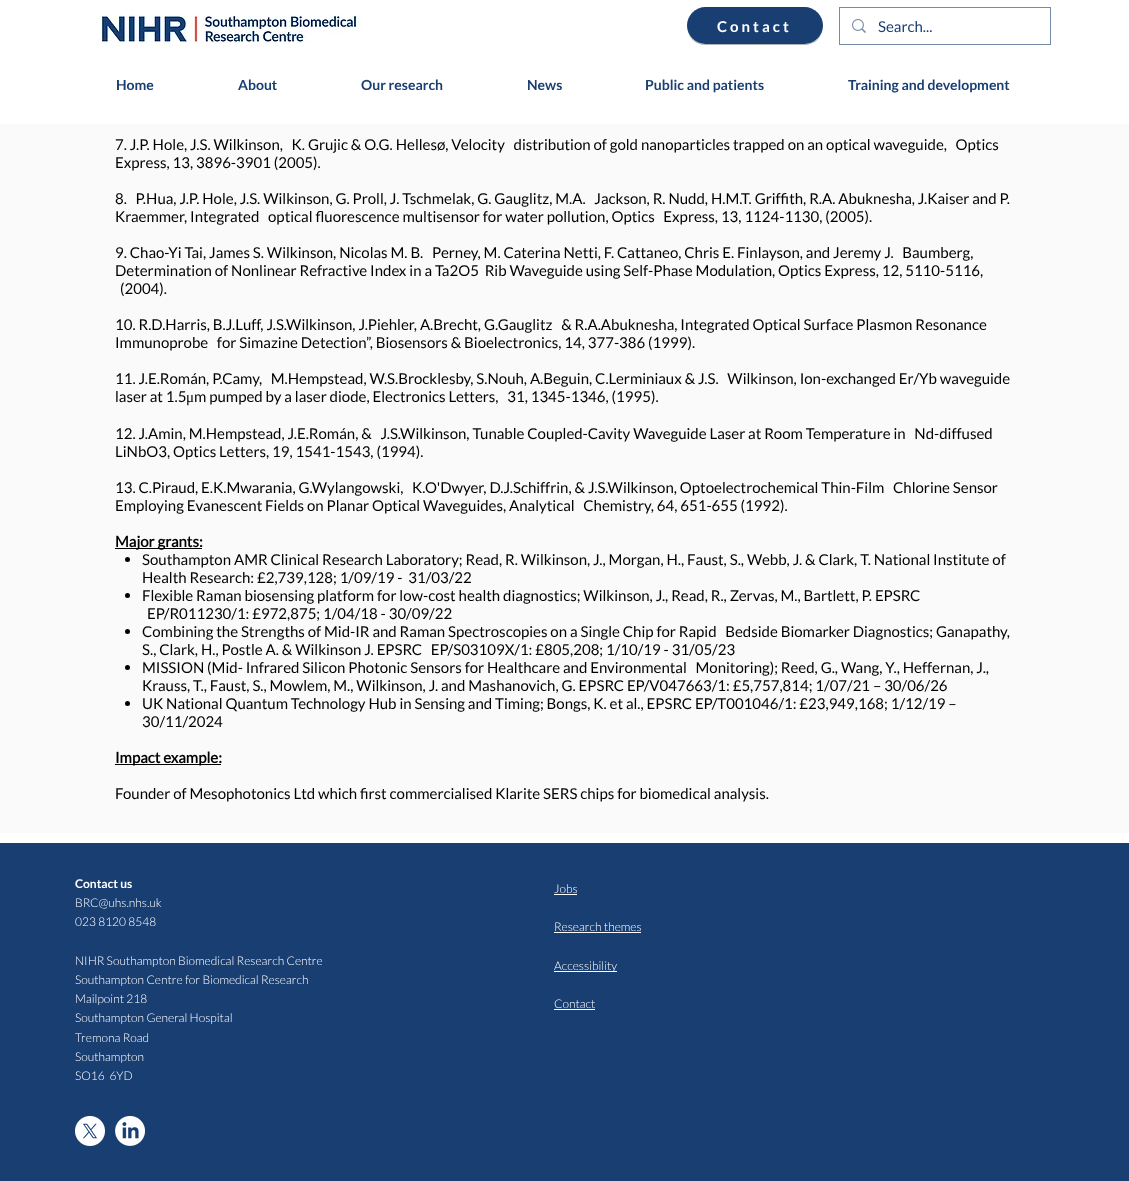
(async () => {
  const canvas = document.querySelector("canvas");
  canvas.width = 1129;
  canvas.height = 1181;
  const ctx = canvas.getContext("2d");
  ctx.miterLimit = 4;
  ctx.fontKerning = "normal";
  async function loadImage(src) {
    const img = new Image();
    img.src = src;
    await img.decode();
    return img;
  }
  let path;

  ctx.fillStyle = "#ffffff";
  ctx.fillRect(0, 0, 1129, 1181);
  ctx.drawImage(await loadImage("img/1.png"), 99, 14, 264, 33);
  ctx.fillStyle = "#afb3b6";
  path = new Path2D("M687 26C687 37 695 45 706 45H804C815 45 823 37 823 26C823 36 815 44 804 44H706C695 44 687 36 687 26Z");
  ctx.fill(path);
  ctx.fillStyle = "#193e72";
  ctx.beginPath();
  ctx.roundRect(687, 7, 136, 37, 18.5);
  ctx.fill();
  ctx.strokeStyle = "#758baa";
  ctx.strokeRect(839.5, 7.5, 211, 37);
  ctx.drawImage(await loadImage("img/2.png"), 852, 19, 14, 14);
  ctx.fillStyle = "#fafafa";
  ctx.fillRect(0, 124, 1129, 709);
  ctx.fillStyle = "#000000";
  ctx.fillRect(115, 548, 87, 1);
  ctx.beginPath();
  ctx.arc(127.5, 559.5, 2.5, 0, Math.PI * 2);
  ctx.fill();
  ctx.beginPath();
  ctx.arc(127.5, 595.5, 2.5, 0, Math.PI * 2);
  ctx.fill();
  ctx.beginPath();
  ctx.arc(127.5, 631.5, 2.5, 0, Math.PI * 2);
  ctx.fill();
  ctx.beginPath();
  ctx.arc(127.5, 667.5, 2.5, 0, Math.PI * 2);
  ctx.fill();
  ctx.beginPath();
  ctx.arc(127.5, 703.5, 2.5, 0, Math.PI * 2);
  ctx.fill();
  for (const [x, y, w, h, color] of [
    [115, 764, 106, 1, "#000000"],
    [0, 843, 1129, 338, "#193e72"],
    [554, 894, 23, 1, "#ffffff"],
    [554, 932, 87, 1, "#ffffff"],
    [554, 971, 63, 1, "#ffffff"],
    [554, 1009, 41, 1, "#ffffff"],
  ]) {
    ctx.fillStyle = color;
    ctx.fillRect(x, y, w, h);
  }
  ctx.drawImage(await loadImage("img/3.png"), 75, 1116, 30, 30);
  ctx.drawImage(await loadImage("img/4.png"), 115, 1116, 30, 30);
  ctx.letterSpacing = "3px";
  ctx.font = "bold 15px 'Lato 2'";
  ctx.fillText("Contact", 717, 32);
  ctx.letterSpacing = "0px";
  ctx.font = "15px Lato";
  ctx.fillStyle = "#193e72";
  ctx.fillText("Search...", 878, 32);
  ctx.font = "bold 14px 'Lato 2'";
  for (const [text, x, y] of [
    ["Home", 116, 90],
    ["About", 238, 90],
    ["Our research", 361, 90],
    ["News", 527, 90],
    ["Public and patients", 645, 90],
    ["Training and development", 848, 90],
  ]) {
    ctx.fillText(text, x, y);
  }
  ctx.font = "15px Lato";
  ctx.fillStyle = "#000000";
  for (const [text, x, y] of [
    ["7. J.P. Hole, J.S. Wilkinson,   K. Grujic & O.G. Hellesø, Velocity   distribution of gold nanoparticles trapped on an optical waveguide,   Optics", 115, 150],
    ["Express, 13, 3896-3901 (2005).", 115, 168],
    ["8.   P.Hua, J.P. Hole, J.S. Wilkinson, G. Proll, J. Tschmelak, G. Gauglitz, M.A.   Jackson, R. Nudd, H.M.T. Griffith, R.A. Abuknesha, J.Kaiser and P.", 115, 204],
    ["Kraemmer, Integrated   optical fluorescence multisensor for water pollution, Optics   Express, 13, 1124-1130, (2005).", 115, 222],
    ["9. Chao-Yi Tai, James S. Wilkinson, Nicolas M. B.   Perney, M. Caterina Netti, F. Cattaneo, Chris E. Finlayson, and Jeremy J.   Baumberg,", 115, 258],
    ["Determination of Nonlinear Refractive Index in a Ta2O5  Rib Waveguide using Self-Phase Modulation, Optics Express, 12, 5110-5116,", 115, 276],
    ["(2004).", 120, 294],
    ["10. R.D.Harris, B.J.Luff, J.S.Wilkinson, J.Piehler, A.Brecht, G.Gauglitz   & R.A.Abuknesha, Integrated Optical Surface Plasmon Resonance", 115, 330],
    ["Immunoprobe   for Simazine Detection”, Biosensors & Bioelectronics, 14, 377-386 (1999).", 115, 348],
    ["11. J.E.Román, P.Camy,   M.Hempstead, W.S.Brocklesby, S.Nouh, A.Beguin, C.Lerminiaux & J.S.   Wilkinson, Ion-exchanged Er/Yb waveguide", 115, 384],
    ["laser at 1.5", 115, 402],
  ]) {
    ctx.fillText(text, x, y);
  }
  ctx.font = "15px Liberation Serif";
  ctx.fillText("μ", 186, 402);
  ctx.font = "15px Lato";
  for (const [text, x, y] of [
    ["m pumped by a laser diode, Electronics Letters,   31, 1345-1346, (1995).", 194, 402],
    ["12. J.Amin, M.Hempstead, J.E.Román, &   J.S.Wilkinson, Tunable Coupled-Cavity Waveguide Laser at Room Temperature in   Nd-diffused", 115, 439],
    ["LiNbO3, Optics Letters, 19, 1541-1543, (1994).", 115, 457],
    ["13. C.Piraud, E.K.Mwarania, G.Wylangowski,   K.O'Dwyer, D.J.Schiffrin, & J.S.Wilkinson, Optoelectrochemical Thin-Film   Chlorine Sensor", 115, 493],
    ["Employing Evanescent Fields on Planar Optical Waveguides, Analytical   Chemistry, 64, 651-655 (1992).", 115, 511],
  ]) {
    ctx.fillText(text, x, y);
  }
  ctx.font = "bold 15px Lato";
  ctx.fillText("Major grants:", 115, 547);
  ctx.font = "15px Lato";
  for (const [text, x, y] of [
    ["Southampton AMR Clinical Research Laboratory; Read, R. Wilkinson, J., Morgan, H., Faust, S., Webb, J. & Clark, T. National Institute of", 142, 565],
    ["Health Research: £2,739,128; 1/09/19 -  31/03/22", 142, 583],
    ["Flexible Raman biosensing platform for low-cost health diagnostics; Wilkinson, J., Read, R., Zervas, M., Bartlett, P. EPSRC", 142, 601],
    ["EP/R011230/1: £972,875; 1/04/18 - 30/09/22", 147, 619],
    ["Combining the Strengths of Mid-IR and Raman Spectroscopies on a Single Chip for Rapid   Bedside Biomarker Diagnostics; Ganapathy,", 142, 637],
    ["S., Clark, H., Postle A. & Wilkinson J. EPSRC   EP/S03109X/1: £805,208; 1/10/19 - 31/05/23", 142, 655],
    ["MISSION (Mid- Infrared Silicon Photonic Sensors for Healthcare and Environmental   Monitoring); Reed, G., Wang, Y., Heffernan, J.,", 142, 673],
    ["Krauss, T., Faust, S., Mowlem, M., Wilkinson, J. and Mashanovich, G. EPSRC EP/V047663/1: £5,757,814; 1/07/21 – 30/06/26", 142, 691],
    ["UK National Quantum Technology Hub in Sensing and Timing; Bongs, K. et al., EPSRC EP/T001046/1: £23,949,168; 1/12/19 –", 142, 709],
    ["30/11/2024", 142, 727],
  ]) {
    ctx.fillText(text, x, y);
  }
  ctx.font = "bold 15px Lato";
  ctx.fillText("Impact example:", 115, 763);
  ctx.font = "15px Lato";
  ctx.fillText("Founder of Mesophotonics Ltd which first commercialised Klarite SERS chips for biomedical analysis.", 115, 799);
  ctx.font = "bold 12px 'Lato 2'";
  ctx.fillStyle = "#ffffff";
  ctx.fillText("Contact us", 75, 888);
  ctx.font = "300 12px Lato";
  for (const [text, x, y] of [
    ["BRC@uhs.nhs.uk", 75, 907],
    ["023 8120 8548", 75, 926],
    ["NIHR Southampton Biomedical Research Centre", 75, 965],
    ["Southampton Centre for Biomedical Research", 75, 984],
    ["Mailpoint 218", 75, 1003],
    ["Southampton General Hospital", 75, 1022],
    ["Tremona Road", 75, 1042],
    ["Southampton", 75, 1061],
    ["SO16  6YD", 75, 1080],
    ["Jobs", 554, 893],
    ["Research themes", 554, 931],
    ["Accessibility", 554, 970],
    ["Contact", 554, 1008],
  ]) {
    ctx.fillText(text, x, y);
  }
})();
